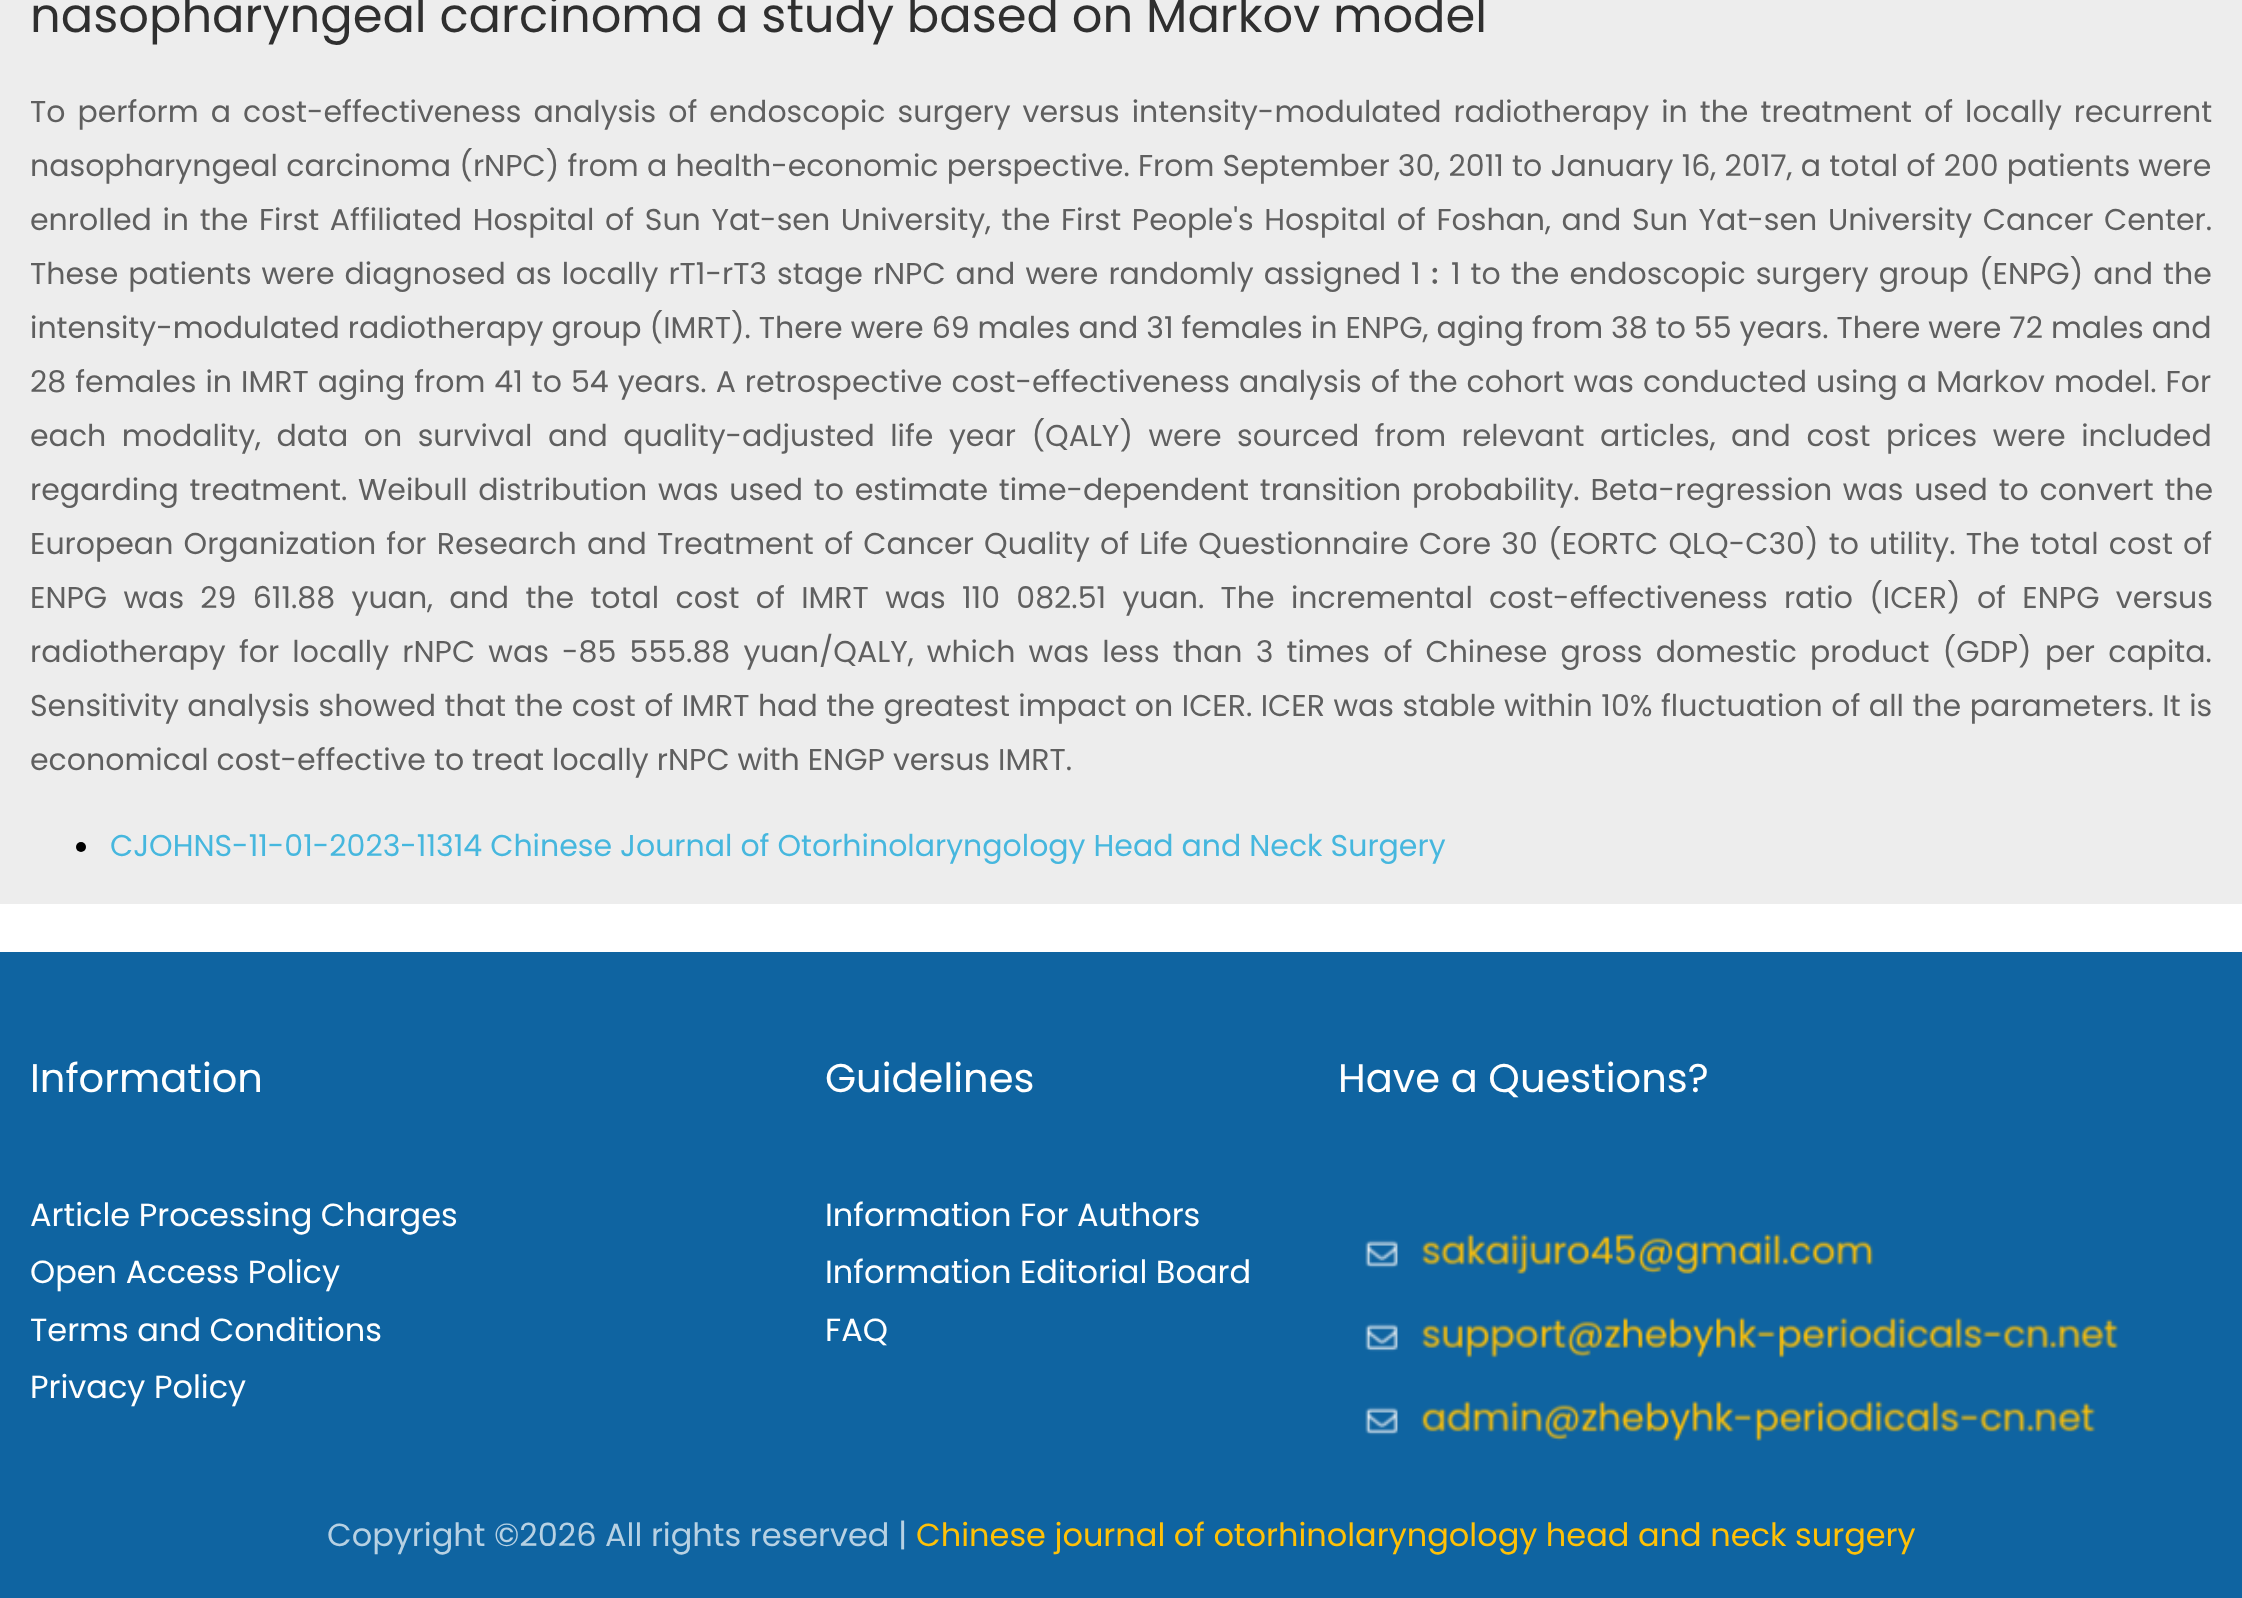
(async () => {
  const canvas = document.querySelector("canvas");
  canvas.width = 2242;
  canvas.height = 1598;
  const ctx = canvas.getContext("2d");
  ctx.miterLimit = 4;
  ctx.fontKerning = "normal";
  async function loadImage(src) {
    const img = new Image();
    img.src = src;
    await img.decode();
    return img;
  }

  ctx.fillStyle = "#ffffff";
  ctx.fillRect(0, 0, 2242, 1598);
  ctx.fillStyle = "#ededed";
  ctx.fillRect(0, 0, 2242, 904);
  ctx.fillStyle = "#000000";
  ctx.beginPath();
  ctx.arc(81, 847, 5, 0, Math.PI * 2);
  ctx.fill();
  ctx.fillStyle = "#0f64a1";
  ctx.fillRect(0, 952, 2242, 646);
  ctx.drawImage(await loadImage("img/1.png"), 1365, 1234, 754, 207);
  ctx.font = "48px Poppins";
  ctx.fillStyle = "#2f2f2f";
  ctx.fillText("nasopharyngeal carcinoma a study based on Markov model", 30, 32);
  ctx.wordSpacing = "4px";
  ctx.font = "30px Poppins";
  ctx.fillStyle = "#5f5f5f";
  ctx.fillText("To perform a cost-effectiveness analysis of endoscopic surgery versus intensity-modulated radiotherapy in the treatment of locally recurrent", 30, 122);
  ctx.wordSpacing = "0.25px";
  ctx.fillText("nasopharyngeal carcinoma (rNPC) from a health-economic perspective. From September 30, 2011 to January 16, 2017, a total of 200 patients were", 30, 176);
  ctx.wordSpacing = "2.6px";
  ctx.fillText("enrolled in the First Affiliated Hospital of Sun Yat-sen University, the First People's Hospital of Foshan, and Sun Yat-sen University Cancer Center.", 30, 230);
  ctx.wordSpacing = "2px";
  ctx.fillText("These patients were diagnosed as locally rT1-rT3 stage rNPC and were randomly assigned 1", 30, 284);
  ctx.wordSpacing = "0px";
  ctx.font = "500 30px WenQuanYi Zen Hei";
  ctx.fillText("︰", 1421, 284);
  ctx.wordSpacing = "2px";
  ctx.font = "30px Poppins";
  ctx.fillText("1 to the endoscopic surgery group (ENPG) and the", 1451, 284);
  ctx.wordSpacing = "0px";
  ctx.fillText("intensity-modulated radiotherapy group (IMRT). There were 69 males and 31 females in ENPG, aging from 38 to 55 years. There were 72 males and", 30, 338);
  ctx.wordSpacing = "1px";
  ctx.fillText("28 females in IMRT aging from 41 to 54 years. A retrospective cost-effectiveness analysis of the cohort was conducted using a Markov model. For", 30, 392);
  ctx.wordSpacing = "7.5px";
  ctx.fillText("each modality, data on survival and quality-adjusted life year (QALY) were sourced from relevant articles, and cost prices were included", 30, 446);
  ctx.wordSpacing = "2.75px";
  ctx.fillText("regarding treatment. Weibull distribution was used to estimate time-dependent transition probability. Beta-regression was used to convert the", 30, 500);
  ctx.wordSpacing = "2.2px";
  ctx.fillText("European Organization for Research and Treatment of Cancer Quality of Life Questionnaire Core 30 (EORTC QLQ-C30) to utility. The total cost of", 30, 554);
  ctx.wordSpacing = "8.3px";
  ctx.fillText("ENPG was 29 611.88 yuan, and the total cost of IMRT was 110 082.51 yuan. The incremental cost-effectiveness ratio (ICER) of ENPG versus", 30, 608);
  ctx.wordSpacing = "5.2px";
  ctx.fillText("radiotherapy for locally rNPC was -85 555.88 yuan/QALY, which was less than 3 times of Chinese gross domestic product (GDP) per capita.", 30, 662);
  ctx.wordSpacing = "0.5px";
  ctx.fillText("Sensitivity analysis showed that the cost of IMRT had the greatest impact on ICER. ICER was stable within 10% fluctuation of all the parameters. It is", 30, 716);
  ctx.wordSpacing = "0px";
  ctx.fillText("economical cost-effective to treat locally rNPC with ENGP versus IMRT.", 30, 770);
  ctx.fillStyle = "#46b7de";
  ctx.fillText("CJOHNS-11-01-2023-11314 Chinese Journal of Otorhinolaryngology Head and Neck Surgery", 110, 856);
  ctx.font = "40px Poppins";
  ctx.fillStyle = "#ffffff";
  ctx.fillText("Information", 30, 1092);
  ctx.font = "32px Poppins";
  for (const [text, x, y] of [
    ["Article Processing Charges", 30, 1226],
    ["Open Access Policy", 30, 1283],
    ["Terms and Conditions", 30, 1341],
    ["Privacy Policy", 30, 1398],
  ]) {
    ctx.fillText(text, x, y);
  }
  ctx.font = "40px Poppins";
  ctx.fillText("Guidelines", 825, 1092);
  ctx.font = "32px Poppins";
  for (const [text, x, y] of [
    ["Information For Authors", 825, 1226],
    ["Information Editorial Board", 825, 1283],
    ["FAQ", 825, 1341],
  ]) {
    ctx.fillText(text, x, y);
  }
  ctx.font = "40px Poppins";
  ctx.fillText("Have a Questions?", 1338, 1092);
  ctx.font = "32px Poppins";
  ctx.fillStyle = "#b7d1e3";
  ctx.fillText("Copyright ©2026 All rights reserved |", 327, 1546);
  ctx.fillStyle = "#ffc107";
  ctx.fillText("Chinese journal of otorhinolaryngology head and neck surgery", 916, 1546);
})();
